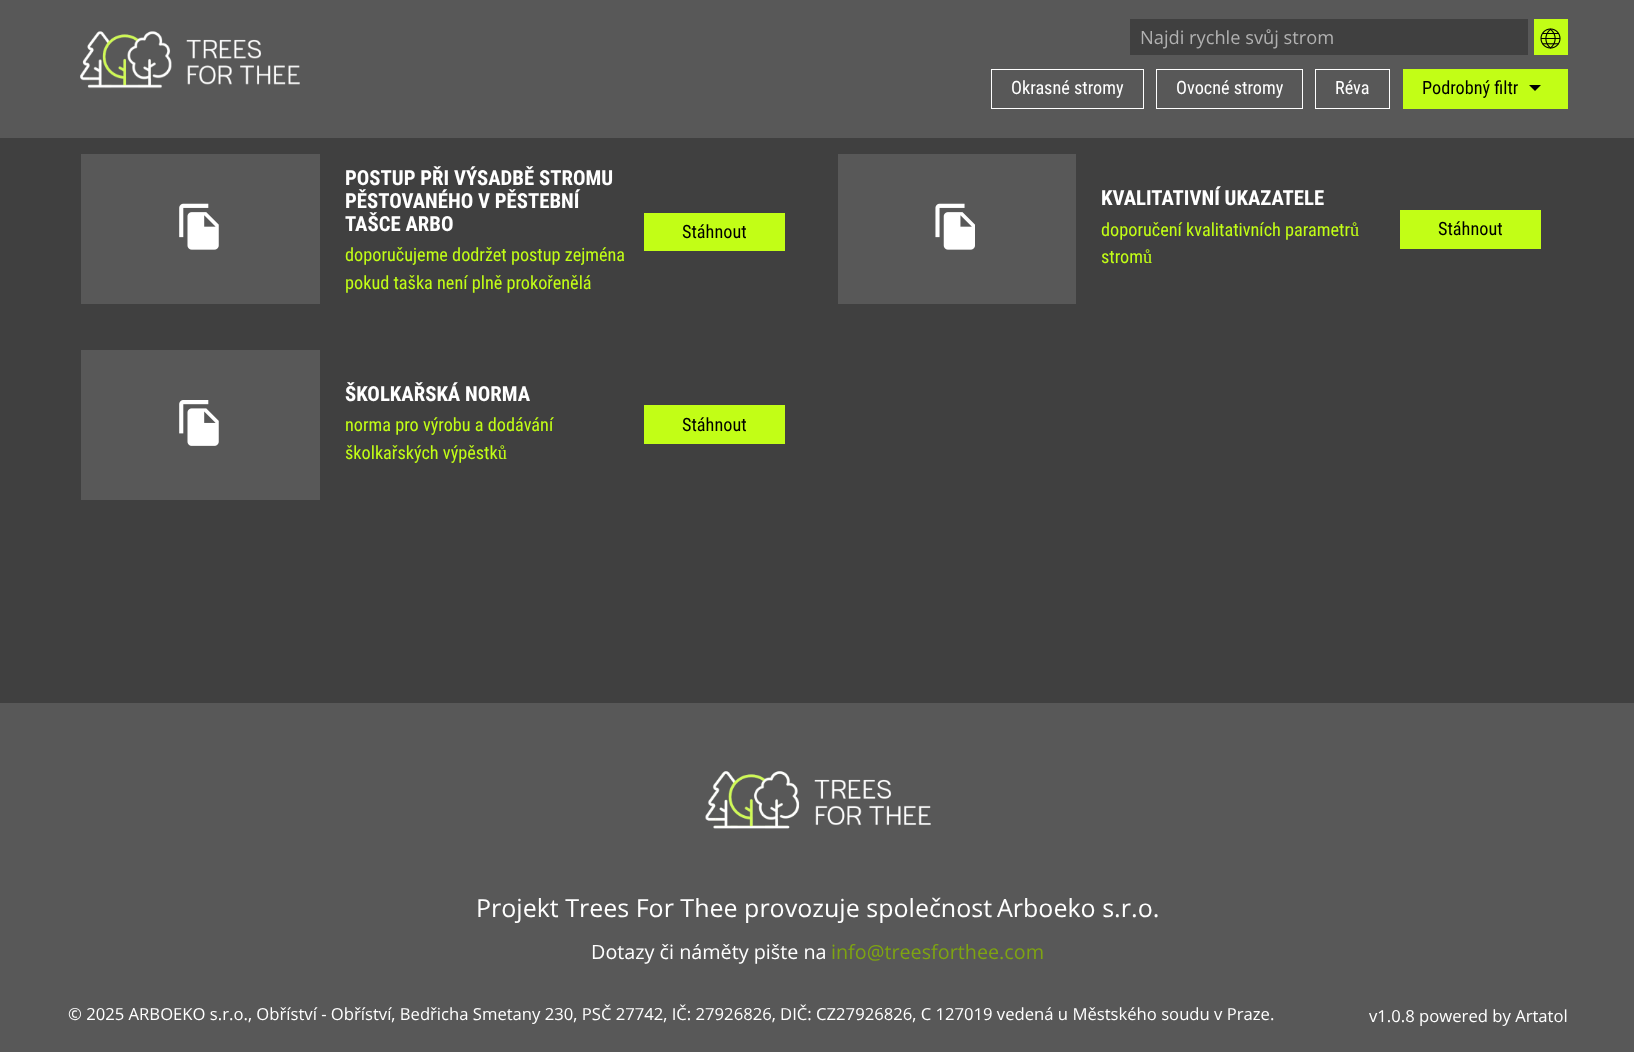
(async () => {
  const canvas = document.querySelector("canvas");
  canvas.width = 1634;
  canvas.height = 1052;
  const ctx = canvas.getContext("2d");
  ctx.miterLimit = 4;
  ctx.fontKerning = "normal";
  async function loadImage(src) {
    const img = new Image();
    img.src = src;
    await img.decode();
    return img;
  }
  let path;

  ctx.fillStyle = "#404040";
  ctx.fillRect(0, 0, 1634, 1052);
  ctx.fillStyle = "#585858";
  ctx.fillRect(0, 0, 1634, 138);
  ctx.drawImage(await loadImage("img/1.png"), 80, 31, 220, 58);
  ctx.fillStyle = "#404040";
  ctx.fillRect(1130, 19, 398, 36);
  ctx.fillStyle = "#c2fe16";
  ctx.fillRect(1534, 19, 34, 36);
  ctx.drawImage(await loadImage("img/2.png"), 1540, 28, 21, 21);
  ctx.strokeStyle = "#ffffff";
  ctx.strokeRect(991.5, 69.5, 152, 39);
  ctx.strokeRect(1156.5, 69.5, 146, 39);
  ctx.strokeRect(1315.5, 69.5, 74, 39);
  ctx.fillRect(1403, 69, 165, 40);
  ctx.fillStyle = "#000000";
  path = new Path2D("M1529 85H1541L1535 91Z");
  ctx.fill(path);
  ctx.fillStyle = "#585858";
  ctx.fillRect(81, 154, 239, 150);
  ctx.drawImage(await loadImage("img/3.png"), 179, 203, 40, 47);
  ctx.fillStyle = "#c2fe16";
  ctx.fillRect(644, 213, 141, 38);
  ctx.fillStyle = "#585858";
  ctx.fillRect(838, 154, 238, 150);
  ctx.drawImage(await loadImage("img/4.png"), 935, 203, 40, 47);
  ctx.fillStyle = "#c2fe16";
  ctx.fillRect(1400, 210, 141, 39);
  ctx.fillStyle = "#585858";
  ctx.fillRect(81, 350, 239, 150);
  ctx.drawImage(await loadImage("img/5.png"), 179, 400, 40, 46);
  ctx.fillStyle = "#c2fe16";
  ctx.fillRect(644, 405, 141, 39);
  ctx.fillStyle = "#585858";
  ctx.fillRect(0, 703, 1634, 349);
  ctx.drawImage(await loadImage("img/6.png"), 705, 771, 226, 58);
  ctx.font = "18.25px Open Sans";
  ctx.fillStyle = "#b1b1b1";
  ctx.fillText("Najdi rychle svůj strom", 1140, 44);
  ctx.font = "18.25px Roboto Condensed";
  ctx.fillStyle = "#ffffff";
  for (const [text, x, y] of [
    ["Okrasné stromy", 1011, 94],
    ["Ovocné stromy", 1176, 94],
    ["Réva", 1335, 94],
  ]) {
    ctx.fillText(text, x, y);
  }
  ctx.fillStyle = "#000000";
  ctx.fillText("Podrobný filtr", 1422, 94);
  ctx.font = "bold 20.75px Roboto Condensed";
  ctx.fillStyle = "#ffffff";
  for (const [text, x, y] of [
    ["POSTUP PŘI VÝSADBĚ STROMU", 345, 185],
    ["PĚSTOVANÉHO V PĚSTEBNÍ", 345, 208],
    ["TAŠCE ARBO", 345, 231],
  ]) {
    ctx.fillText(text, x, y);
  }
  ctx.font = "18.25px Roboto Condensed";
  ctx.fillStyle = "#c2fe16";
  ctx.fillText("doporučujeme dodržet postup zejména", 345, 261);
  ctx.fillText("pokud taška není plně prokořenělá", 345, 289);
  ctx.fillStyle = "#000000";
  ctx.fillText("Stáhnout", 682, 238);
  ctx.font = "bold 20.75px Roboto Condensed";
  ctx.fillStyle = "#ffffff";
  ctx.fillText("KVALITATIVNÍ UKAZATELE", 1101, 205);
  ctx.font = "18.25px Roboto Condensed";
  ctx.fillStyle = "#c2fe16";
  ctx.fillText("doporučení kvalitativních parametrů", 1101, 236);
  ctx.fillText("stromů", 1101, 263);
  ctx.fillStyle = "#000000";
  ctx.fillText("Stáhnout", 1438, 235);
  ctx.font = "bold 20.75px Roboto Condensed";
  ctx.fillStyle = "#ffffff";
  ctx.fillText("ŠKOLKAŘSKÁ NORMA", 345, 401);
  ctx.font = "18.25px Roboto Condensed";
  ctx.fillStyle = "#c2fe16";
  ctx.fillText("norma pro výrobu a dodávání", 345, 431);
  ctx.fillText("školkařských výpěstků", 345, 459);
  ctx.fillStyle = "#000000";
  ctx.fillText("Stáhnout", 682, 431);
  ctx.font = "25px Open Sans";
  ctx.fillStyle = "#ffffff";
  ctx.fillText("Projekt Trees For Thee provozuje společnost", 476, 917);
  ctx.fillText("Arboeko s.r.o.", 997, 917);
  ctx.font = "19.75px Open Sans";
  ctx.fillText("Dotazy či náměty pište na", 591, 959);
  ctx.fillStyle = "#7ea411";
  ctx.fillText("info@treesforthee.com", 831, 959);
  ctx.font = "16.65px Open Sans";
  ctx.fillStyle = "#ffffff";
  ctx.fillText("© 2025 ARBOEKO s.r.o., Obříství - Obříství, Bedřicha Smetany 230, PSČ 27742, IČ: 27926826, DIČ: CZ27926826, C 127019 vedená u Městského soudu v Praze.", 68, 1020);
  ctx.fillText("v1.0.8 powered by Artatol", 1369, 1022);
})();
